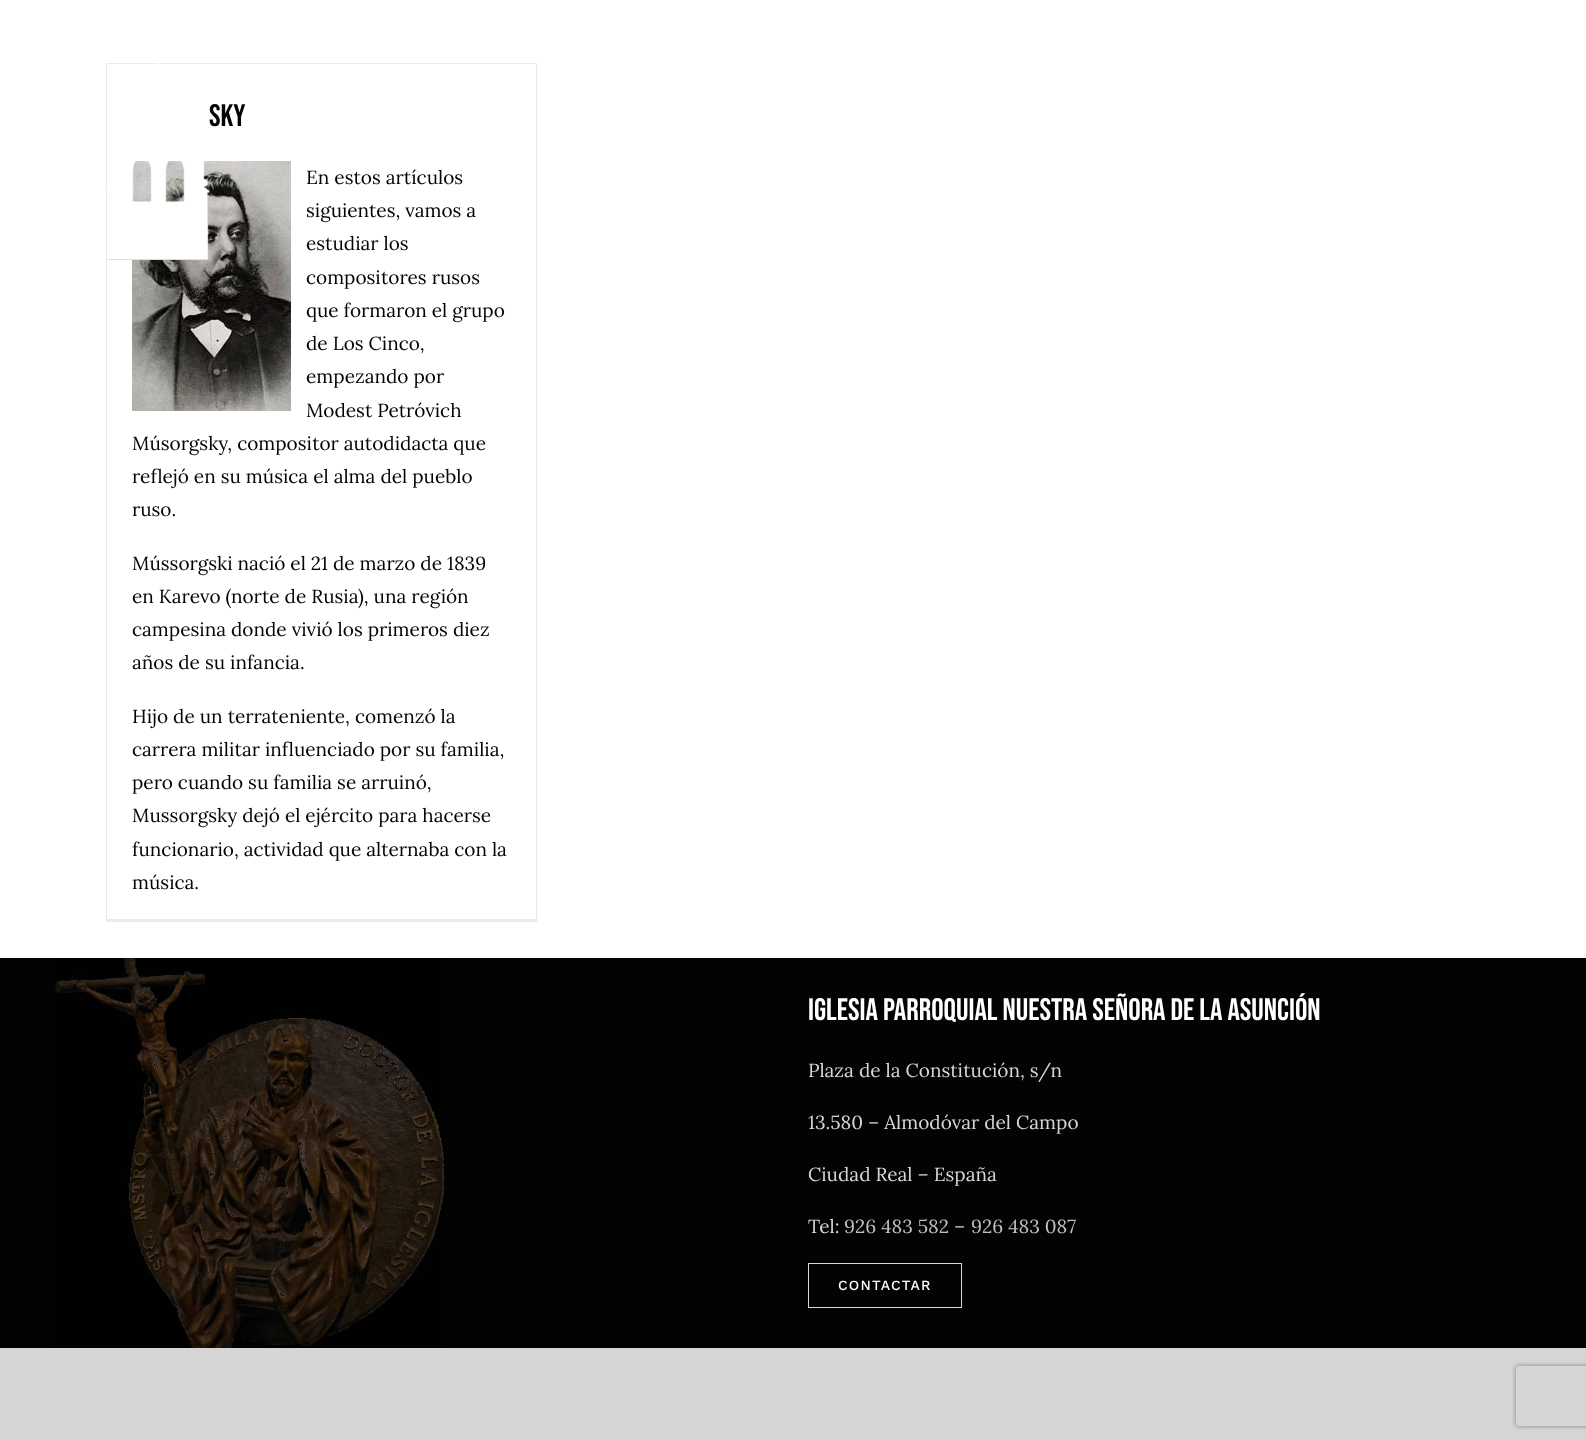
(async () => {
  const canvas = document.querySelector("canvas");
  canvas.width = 1586;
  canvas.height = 1440;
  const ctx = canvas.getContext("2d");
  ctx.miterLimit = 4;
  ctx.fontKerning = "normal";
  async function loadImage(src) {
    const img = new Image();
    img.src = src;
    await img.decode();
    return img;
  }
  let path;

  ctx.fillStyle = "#d7d6d6";
  ctx.fillRect(0, 0, 1586, 1440);
  for (const [x, y, w, h, color] of [
    [0, 0, 1586, 958, "#ffffff"],
    [106, 63, 431, 1, "#ebeaea"],
    [536, 63, 1, 859, "#ebeaea"],
    [106, 919, 431, 3, "#ebeaea"],
    [106, 63, 1, 859, "#ebeaea"],
  ]) {
    ctx.fillStyle = color;
    ctx.fillRect(x, y, w, h);
  }
  ctx.drawImage(await loadImage("img/2.png"), 132, 161, 159, 250);
  ctx.fillStyle = "#030303";
  ctx.fillRect(0, 958, 1586, 390);
  ctx.drawImage(await loadImage("img/3.png"), 55, 958, 391, 390);
  ctx.strokeStyle = "#d6d6d6";
  ctx.strokeRect(808.5, 1263.5, 153, 44);
  ctx.save();
  path = new Path2D("M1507 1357H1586V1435H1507ZM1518 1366H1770C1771 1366 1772 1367 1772 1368V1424C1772 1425 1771 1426 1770 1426H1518C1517 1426 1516 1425 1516 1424V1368C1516 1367 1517 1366 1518 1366Z");
  ctx.clip(path, "evenodd");
  ctx.fillStyle = "#808080";
  ctx.filter = "blur(2.5px)";
  ctx.beginPath();
  ctx.roundRect(1516, 1366, 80, 60, 2);
  ctx.fill();
  ctx.filter = "none";
  ctx.restore();
  ctx.font = "31px Bebas Neue";
  ctx.fillText("sky", 209, 126);
  ctx.drawImage(await loadImage("img/1.png"), 106, 63, 104, 197);
  ctx.font = "19px Lora";
  for (const [text, x, y] of [
    ["En estos artículos", 306, 184],
    ["siguientes, vamos a", 306, 217],
    ["estudiar los", 306, 250],
    ["compositores rusos", 306, 284],
    ["que formaron el grupo", 306, 317],
    ["de Los Cinco,", 306, 350],
    ["empezando por", 306, 383],
    ["Modest Petróvich", 306, 417],
    ["Músorgsky, compositor autodidacta que", 132, 450],
    ["reflejó en su música el alma del pueblo", 132, 483],
    ["ruso.", 132, 516],
    ["Mússorgski nació el 21 de marzo de 1839", 132, 570],
    ["en Karevo (norte de Rusia), una región", 132, 603],
    ["campesina donde vivió los primeros diez", 132, 636],
    ["años de su infancia.", 132, 669],
    ["Hijo de un terrateniente, comenzó la", 132, 723],
    ["carrera militar influenciado por su familia,", 132, 756],
    ["pero cuando su familia se arruinó,", 132, 789],
    ["Mussorgsky dejó el ejército para hacerse", 132, 822],
    ["funcionario, actividad que alternaba con la", 132, 856],
    ["música.", 132, 889],
  ]) {
    ctx.fillText(text, x, y);
  }
  ctx.font = "31px Bebas Neue";
  ctx.fillStyle = "#ffffff";
  ctx.fillText("Iglesia Parroquial Nuestra Señora de la Asunción", 808, 1020);
  ctx.font = "19px Lora";
  ctx.fillStyle = "#d6d6d6";
  for (const [text, x, y] of [
    ["Plaza de la Constitución, s/n", 808, 1077],
    ["13.580 – Almodóvar del Campo", 808, 1129],
    ["Ciudad Real – España", 808, 1181],
    ["Tel:", 808, 1233],
  ]) {
    ctx.fillText(text, x, y);
  }
  ctx.fillStyle = "#bfbfbf";
  ctx.fillText("926 483 582", 844, 1233);
  ctx.fillStyle = "#d6d6d6";
  ctx.fillText("–", 954, 1233);
  ctx.fillStyle = "#bfbfbf";
  ctx.fillText("926 483 087", 971, 1233);
  ctx.letterSpacing = "1.25px";
  ctx.font = "500 14px Work Sans";
  ctx.fillStyle = "#ffffff";
  ctx.fillText("CONTACTAR", 838, 1290);
})();
